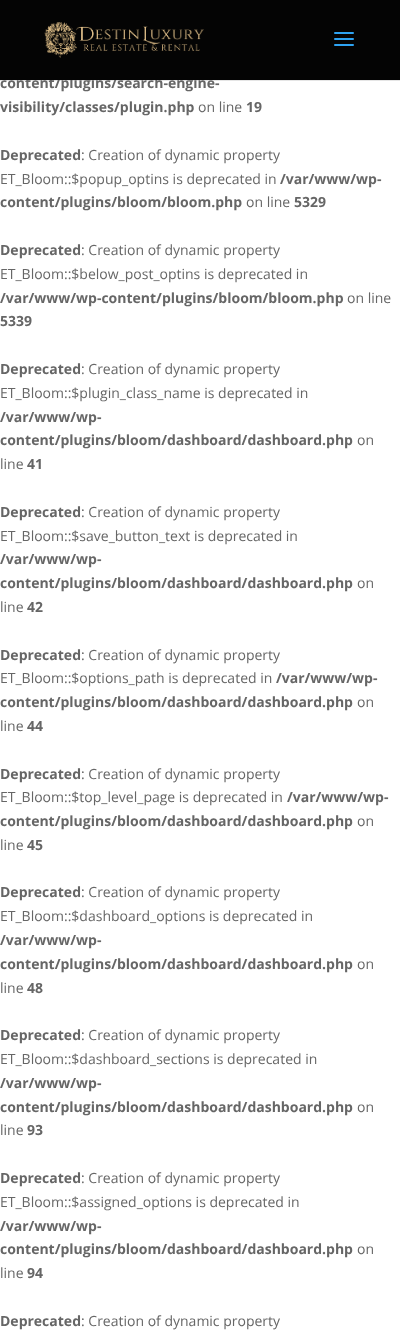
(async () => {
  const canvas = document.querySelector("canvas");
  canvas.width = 400;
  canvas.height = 1336;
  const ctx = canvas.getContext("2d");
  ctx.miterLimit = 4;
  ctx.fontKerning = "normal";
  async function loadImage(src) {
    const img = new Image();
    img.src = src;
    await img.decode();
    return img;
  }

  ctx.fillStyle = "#ffffff";
  ctx.fillRect(0, 0, 400, 1336);
  ctx.fillStyle = "rgba(0, 0, 0, 0.1)";
  ctx.fillRect(0, 80, 400, 1);
  ctx.font = "bold 14px Open Sans";
  ctx.fillStyle = "#666666";
  ctx.fillText("content/plugins/search-engine-", 0, 88);
  ctx.fillStyle = "#040404";
  ctx.fillRect(0, 0, 400, 80);
  ctx.drawImage(await loadImage("img/2.png"), 334, 32, 20, 14);
  ctx.drawImage(await loadImage("img/1.png"), 44, 22, 160, 36);
  ctx.fillStyle = "#666666";
  ctx.fillText("visibility/classes/plugin.php", 0, 112);
  ctx.font = "14px Open Sans";
  ctx.fillText("on line", 198, 112);
  ctx.font = "bold 14px Open Sans";
  ctx.fillText("19", 246, 112);
  ctx.fillText("Deprecated", 0, 160);
  ctx.font = "14px Open Sans";
  ctx.fillText(": Creation of dynamic property", 81, 160);
  ctx.fillText("ET_Bloom::$popup_optins is deprecated in", 0, 184);
  ctx.font = "bold 14px Open Sans";
  ctx.fillText("/var/www/wp-", 280, 184);
  ctx.fillText("content/plugins/bloom/bloom.php", 0, 207);
  ctx.font = "14px Open Sans";
  ctx.fillText("on line", 246, 207);
  ctx.font = "bold 14px Open Sans";
  ctx.fillText("5329", 294, 207);
  ctx.fillText("Deprecated", 0, 255);
  ctx.font = "14px Open Sans";
  ctx.fillText(": Creation of dynamic property", 81, 255);
  ctx.fillText("ET_Bloom::$below_post_optins is deprecated in", 0, 279);
  ctx.font = "bold 14px Open Sans";
  ctx.fillText("/var/www/wp-content/plugins/bloom/bloom.php", 0, 303);
  ctx.font = "14px Open Sans";
  ctx.fillText("on line", 347, 303);
  ctx.font = "bold 14px Open Sans";
  ctx.fillText("5339", 0, 326);
  ctx.fillText("Deprecated", 0, 374);
  ctx.font = "14px Open Sans";
  ctx.fillText(": Creation of dynamic property", 81, 374);
  ctx.fillText("ET_Bloom::$plugin_class_name is deprecated in", 0, 398);
  ctx.font = "bold 14px Open Sans";
  ctx.fillText("/var/www/wp-", 0, 422);
  ctx.fillText("content/plugins/bloom/dashboard/dashboard.php", 0, 445);
  ctx.font = "14px Open Sans";
  ctx.fillText("on", 357, 445);
  ctx.fillText("line", 0, 469);
  ctx.font = "bold 14px Open Sans";
  ctx.fillText("41", 27, 469);
  ctx.fillText("Deprecated", 0, 517);
  ctx.font = "14px Open Sans";
  ctx.fillText(": Creation of dynamic property", 81, 517);
  ctx.fillText("ET_Bloom::$save_button_text is deprecated in", 0, 541);
  ctx.font = "bold 14px Open Sans";
  ctx.fillText("/var/www/wp-", 0, 564);
  ctx.fillText("content/plugins/bloom/dashboard/dashboard.php", 0, 588);
  ctx.font = "14px Open Sans";
  ctx.fillText("on", 357, 588);
  ctx.fillText("line", 0, 612);
  ctx.font = "bold 14px Open Sans";
  ctx.fillText("42", 27, 612);
  ctx.fillText("Deprecated", 0, 660);
  ctx.font = "14px Open Sans";
  ctx.fillText(": Creation of dynamic property", 81, 660);
  ctx.fillText("ET_Bloom::$options_path is deprecated in", 0, 683);
  ctx.font = "bold 14px Open Sans";
  ctx.fillText("/var/www/wp-", 276, 683);
  ctx.fillText("content/plugins/bloom/dashboard/dashboard.php", 0, 707);
  ctx.font = "14px Open Sans";
  ctx.fillText("on", 357, 707);
  ctx.fillText("line", 0, 731);
  ctx.font = "bold 14px Open Sans";
  ctx.fillText("44", 27, 731);
  ctx.fillText("Deprecated", 0, 779);
  ctx.font = "14px Open Sans";
  ctx.fillText(": Creation of dynamic property", 81, 779);
  ctx.fillText("ET_Bloom::$top_level_page is deprecated in", 0, 802);
  ctx.font = "bold 14px Open Sans";
  ctx.fillText("/var/www/wp-", 287, 802);
  ctx.fillText("content/plugins/bloom/dashboard/dashboard.php", 0, 826);
  ctx.font = "14px Open Sans";
  ctx.fillText("on", 357, 826);
  ctx.fillText("line", 0, 850);
  ctx.font = "bold 14px Open Sans";
  ctx.fillText("45", 27, 850);
  ctx.fillText("Deprecated", 0, 897);
  ctx.font = "14px Open Sans";
  ctx.fillText(": Creation of dynamic property", 81, 897);
  ctx.fillText("ET_Bloom::$dashboard_options is deprecated in", 0, 921);
  ctx.font = "bold 14px Open Sans";
  ctx.fillText("/var/www/wp-", 0, 945);
  ctx.fillText("content/plugins/bloom/dashboard/dashboard.php", 0, 969);
  ctx.font = "14px Open Sans";
  ctx.fillText("on", 357, 969);
  ctx.fillText("line", 0, 993);
  ctx.font = "bold 14px Open Sans";
  ctx.fillText("48", 27, 993);
  ctx.fillText("Deprecated", 0, 1040);
  ctx.font = "14px Open Sans";
  ctx.fillText(": Creation of dynamic property", 81, 1040);
  ctx.fillText("ET_Bloom::$dashboard_sections is deprecated in", 0, 1064);
  ctx.font = "bold 14px Open Sans";
  ctx.fillText("/var/www/wp-", 0, 1088);
  ctx.fillText("content/plugins/bloom/dashboard/dashboard.php", 0, 1112);
  ctx.font = "14px Open Sans";
  ctx.fillText("on", 357, 1112);
  ctx.fillText("line", 0, 1135);
  ctx.font = "bold 14px Open Sans";
  ctx.fillText("93", 27, 1135);
  ctx.fillText("Deprecated", 0, 1183);
  ctx.font = "14px Open Sans";
  ctx.fillText(": Creation of dynamic property", 81, 1183);
  ctx.fillText("ET_Bloom::$assigned_options is deprecated in", 0, 1207);
  ctx.font = "bold 14px Open Sans";
  ctx.fillText("/var/www/wp-", 0, 1231);
  ctx.fillText("content/plugins/bloom/dashboard/dashboard.php", 0, 1254);
  ctx.font = "14px Open Sans";
  ctx.fillText("on", 357, 1254);
  ctx.fillText("line", 0, 1278);
  ctx.font = "bold 14px Open Sans";
  ctx.fillText("94", 27, 1278);
  ctx.fillText("Deprecated", 0, 1326);
  ctx.font = "14px Open Sans";
  ctx.fillText(": Creation of dynamic property", 81, 1326);
})();
